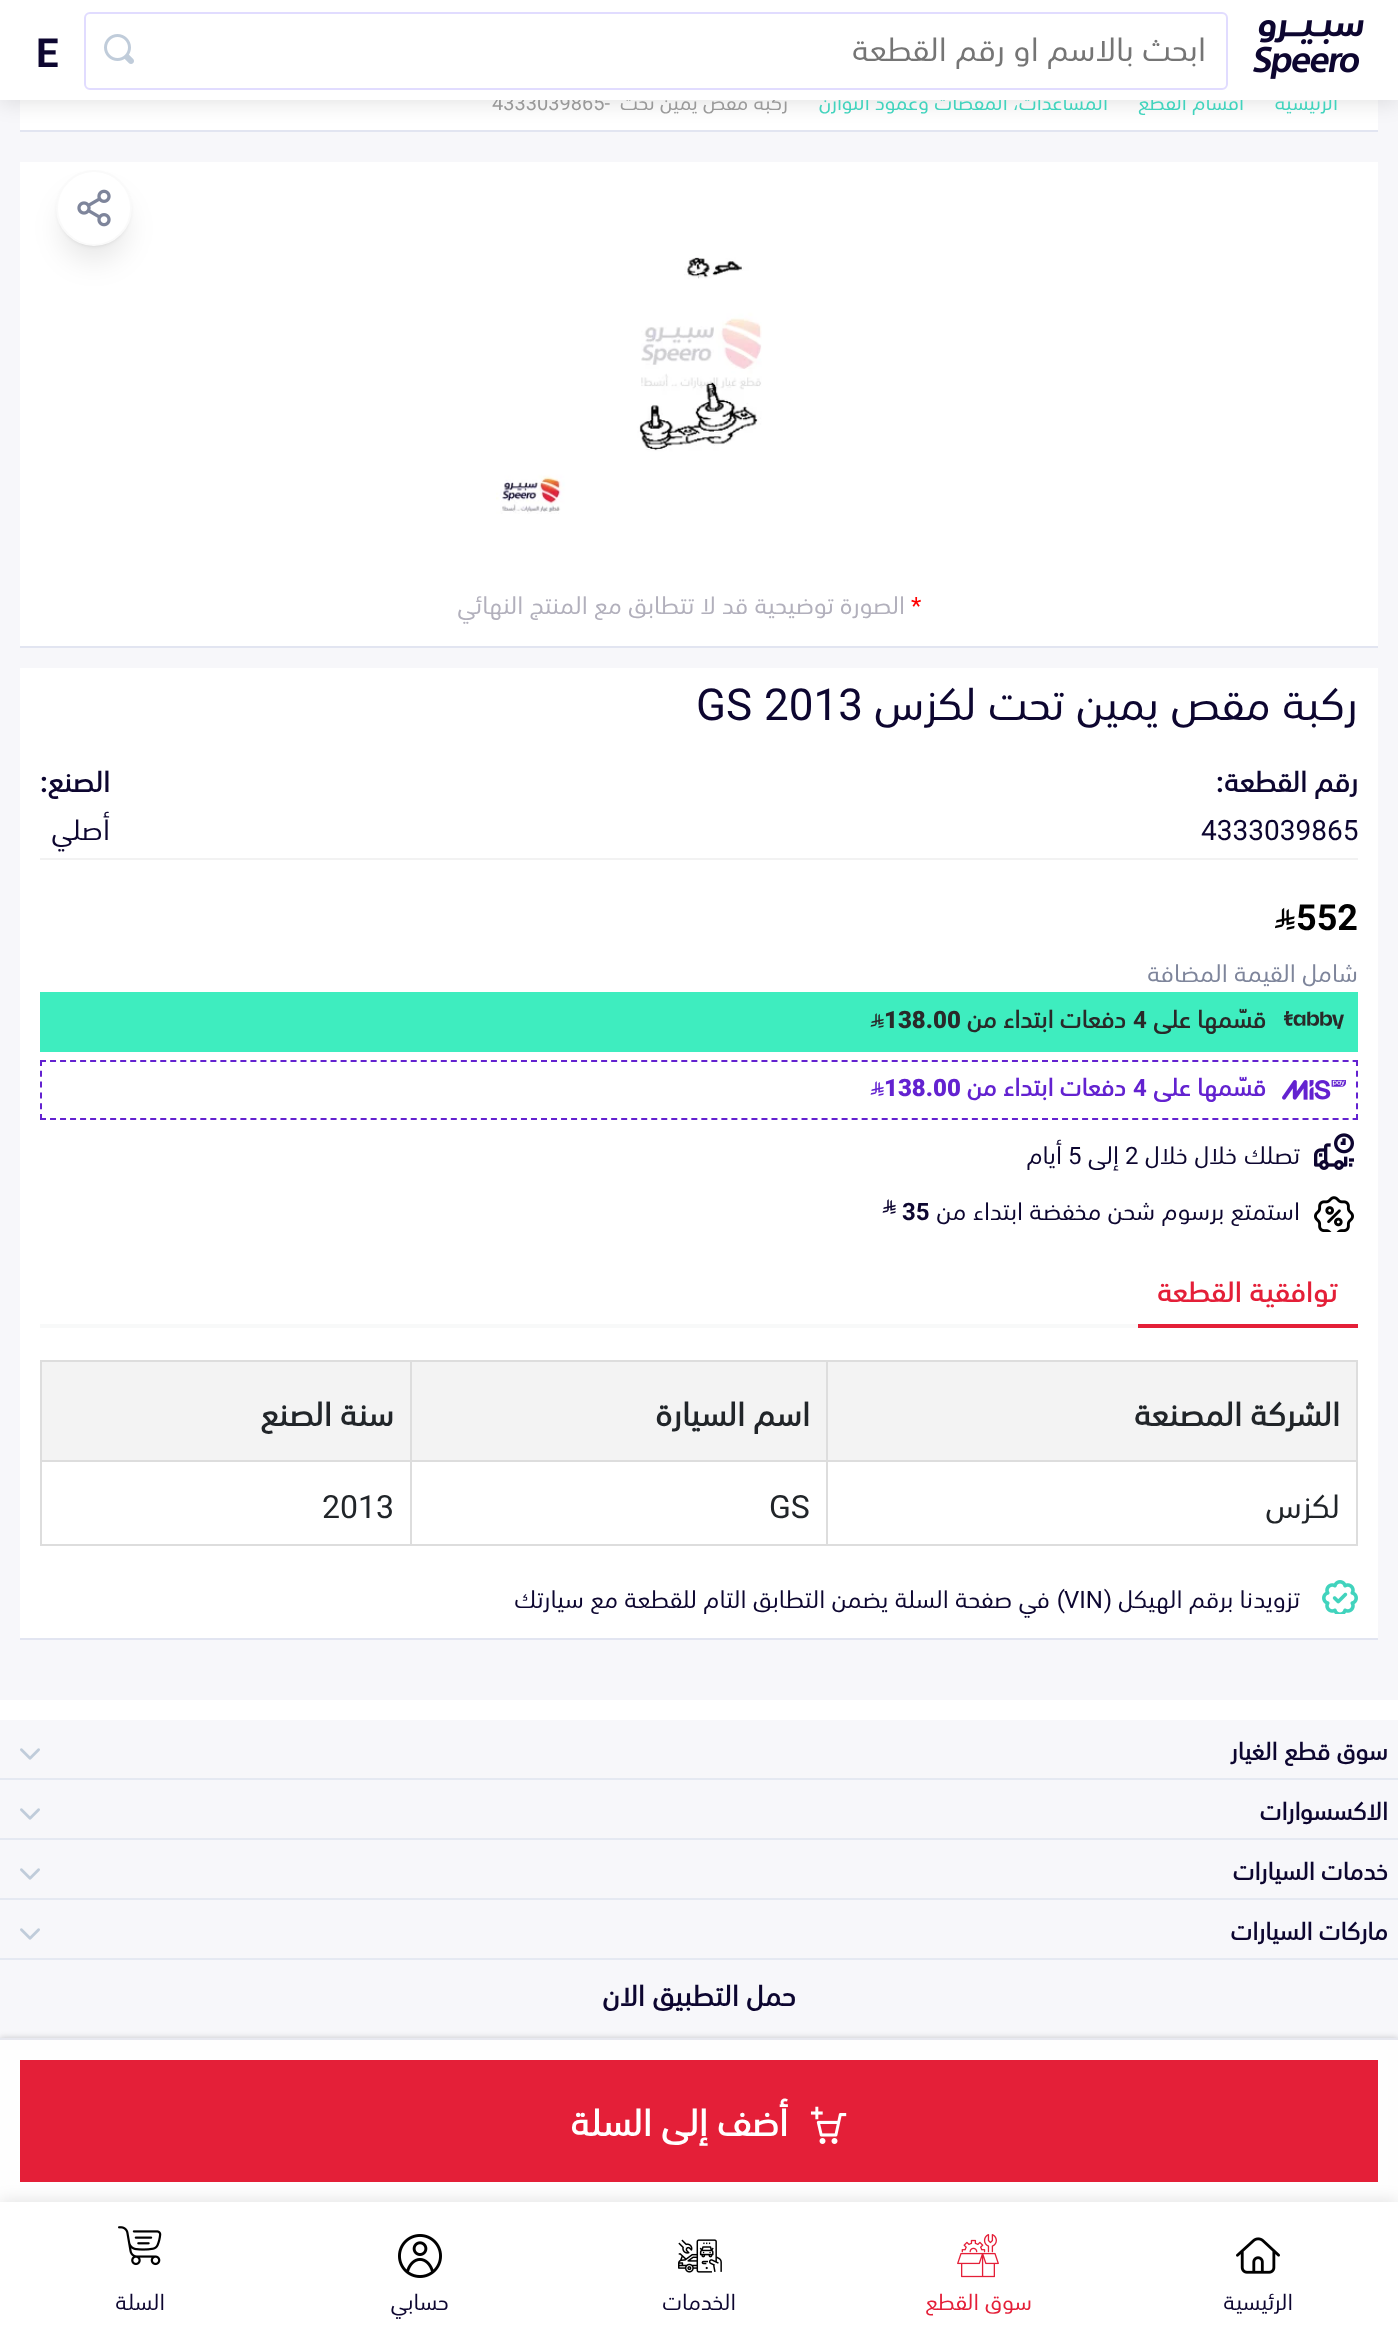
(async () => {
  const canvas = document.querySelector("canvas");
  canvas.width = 1398;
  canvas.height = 2342;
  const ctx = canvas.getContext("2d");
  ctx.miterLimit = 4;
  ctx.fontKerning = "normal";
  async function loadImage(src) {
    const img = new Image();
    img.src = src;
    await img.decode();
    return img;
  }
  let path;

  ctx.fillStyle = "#ffffff";
  ctx.fillRect(0, 0, 1398, 2342);
  for (const [x, y, w, h, color] of [
    [0, 100, 1398, 1600, "#f7f7fa"],
    [20, 100, 1358, 30, "#ffffff"],
    [20, 130, 1358, 2, "#e2e5f1"],
  ]) {
    ctx.fillStyle = color;
    ctx.fillRect(x, y, w, h);
  }
  ctx.fillStyle = "rgba(0, 0, 0, 0.1)";
  ctx.filter = "blur(10px)";
  ctx.beginPath();
  ctx.rect(0, 4, 1398, 100);
  ctx.fill();
  ctx.filter = "none";
  ctx.fillStyle = "#ffffff";
  ctx.fillRect(20, 162, 1358, 484);
  ctx.fillStyle = "#e2e5f1";
  ctx.fillRect(20, 646, 1358, 2);
  ctx.fillStyle = "rgba(0, 0, 0, 0.1)";
  ctx.filter = "blur(2px)";
  ctx.beginPath();
  ctx.roundRect(58, 174, 72, 72, 36);
  ctx.fill();
  ctx.filter = "none";
  ctx.filter = "blur(15px)";
  ctx.beginPath();
  ctx.roundRect(62, 196, 64, 64, 32);
  ctx.fill();
  ctx.filter = "none";
  ctx.fillStyle = "#ffffff";
  ctx.beginPath();
  ctx.arc(94, 208, 37, 0, Math.PI * 2);
  ctx.fill();
  ctx.strokeStyle = "#fafafa";
  ctx.lineWidth = 2;
  ctx.stroke();
  ctx.drawImage(await loadImage("img/3.png"), 77, 189, 34, 38);
  ctx.drawImage(await loadImage("img/4.png"), 496, 257, 266, 257);
  for (const [x, y, w, h, color] of [
    [20, 668, 1358, 970, "#ffffff"],
    [20, 1638, 1358, 2, "#e2e5f1"],
    [40, 858, 1318, 2, "#f2f2f2"],
  ]) {
    ctx.fillStyle = color;
    ctx.fillRect(x, y, w, h);
  }
  ctx.drawImage(await loadImage("img/5.png"), 1275, 907, 20, 23);
  ctx.fillStyle = "#3eedbf";
  ctx.fillRect(40, 992, 1318, 60);
  ctx.drawImage(await loadImage("img/6.png"), 1284, 1011, 60, 18);
  ctx.drawImage(await loadImage("img/7.png"), 870, 1013, 14, 15);
  path = new Path2D("M40 1061H1358");
  ctx.strokeStyle = "#6322d0";
  ctx.setLineDash([6, 4.02]);
  ctx.stroke(path);
  path = new Path2D("M1357 1060V1120");
  ctx.setLineDash([6, 4.8]);
  ctx.stroke(path);
  path = new Path2D("M40 1119H1358");
  ctx.setLineDash([6, 4.02]);
  ctx.stroke(path);
  path = new Path2D("M41 1060V1120");
  ctx.setLineDash([6, 4.8]);
  ctx.stroke(path);
  ctx.drawImage(await loadImage("img/8.png"), 1282, 1080, 64, 20);
  ctx.drawImage(await loadImage("img/9.png"), 870, 1081, 14, 15);
  ctx.drawImage(await loadImage("img/10.png"), 1314, 1133, 40, 37);
  ctx.drawImage(await loadImage("img/11.png"), 1314, 1196, 40, 36);
  ctx.drawImage(await loadImage("img/12.png"), 882, 1199, 14, 15);
  for (const [x, y, w, h, color] of [
    [40, 1324, 1098, 4, "#f8f9f9"],
    [1138, 1324, 220, 4, "#e41f38"],
    [42, 1362, 1314, 98, "#f3f3f3"],
    [40, 1360, 372, 2, "#dddddd"],
    [40, 1460, 372, 2, "#dddddd"],
    [410, 1460, 2, 86, "#dddddd"],
    [410, 1460, 418, 2, "#dddddd"],
    [410, 1360, 2, 102, "#dddddd"],
    [410, 1360, 418, 2, "#dddddd"],
    [826, 1460, 2, 86, "#dddddd"],
    [826, 1460, 532, 2, "#dddddd"],
    [826, 1360, 2, 102, "#dddddd"],
    [826, 1360, 532, 2, "#dddddd"],
    [1356, 1460, 2, 86, "#dddddd"],
    [1356, 1360, 2, 102, "#dddddd"],
    [40, 1544, 372, 2, "#dddddd"],
    [40, 1460, 2, 86, "#dddddd"],
    [40, 1360, 2, 102, "#dddddd"],
    [410, 1544, 418, 2, "#dddddd"],
    [826, 1544, 532, 2, "#dddddd"],
  ]) {
    ctx.fillStyle = color;
    ctx.fillRect(x, y, w, h);
  }
  ctx.drawImage(await loadImage("img/13.png"), 1322, 1580, 36, 34);
  ctx.fillStyle = "#f7f7fa";
  ctx.fillRect(0, 1720, 1398, 318);
  ctx.fillStyle = "rgba(0, 0, 0, 0.2)";
  ctx.filter = "blur(3px)";
  ctx.beginPath();
  ctx.rect(0, 2038, 1398, 174);
  ctx.fill();
  ctx.filter = "none";
  for (const [x, y, w, h, color] of [
    [0, 2040, 1398, 162, "#fefefe"],
    [0, 2038, 1398, 2, "#e7e8ef"],
    [20, 2060, 1358, 122, "#e41f38"],
  ]) {
    ctx.fillStyle = color;
    ctx.fillRect(x, y, w, h);
  }
  ctx.drawImage(await loadImage("img/14.png"), 810, 2106, 37, 38);
  ctx.fillStyle = "#e5e9f2";
  ctx.fillRect(0, 1778, 1398, 2);
  ctx.drawImage(await loadImage("img/15.png"), 20, 1748, 20, 12);
  ctx.fillRect(0, 1838, 1398, 2);
  ctx.drawImage(await loadImage("img/15.png"), 20, 1808, 20, 12);
  ctx.fillRect(0, 1898, 1398, 2);
  ctx.drawImage(await loadImage("img/15.png"), 20, 1868, 20, 12);
  ctx.fillRect(0, 1958, 1398, 2);
  ctx.drawImage(await loadImage("img/15.png"), 20, 1928, 20, 12);
  ctx.fillStyle = "rgba(0, 0, 0, 0.1)";
  ctx.filter = "blur(8px)";
  ctx.beginPath();
  ctx.rect(0, 2200, 1398, 140);
  ctx.fill();
  ctx.filter = "none";
  ctx.fillStyle = "#ffffff";
  ctx.fillRect(0, 2202, 1398, 140);
  ctx.drawImage(await loadImage("img/16.png"), 1236, 2237, 44, 37);
  ctx.drawImage(await loadImage("img/17.png"), 957, 2234, 42, 44);
  ctx.drawImage(await loadImage("img/18.png"), 678, 2239, 44, 34);
  ctx.drawImage(await loadImage("img/19.png"), 398, 2234, 44, 44);
  ctx.drawImage(await loadImage("img/20.png"), 118, 2226, 44, 40);
  ctx.direction = "rtl";
  ctx.font = "20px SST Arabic";
  ctx.fillStyle = "#41d3bd";
  for (const [text, x, y] of [
    ["الرئيسية", 1338, 110],
    ["أقسام القطع", 1244, 110],
    ["المساعدات، المقصات وعمود التوازن", 1108, 110],
  ]) {
    ctx.fillText(text, x, y);
  }
  ctx.fillStyle = "#999999";
  ctx.fillText("ركبة مقص يمين تحت", 788, 110);
  ctx.direction = "ltr";
  ctx.font = "20px Roboto";
  ctx.fillText("4333039865-", 492, 110);
  ctx.fillStyle = "#ffffff";
  ctx.fillRect(0, 0, 1398, 100);
  ctx.beginPath();
  ctx.roundRect(85, 13, 1142, 76, 5);
  ctx.strokeStyle = "#e1dcff";
  ctx.setLineDash([]);
  ctx.stroke();
  ctx.drawImage(await loadImage("img/2.png"), 104, 34, 30, 30);
  ctx.direction = "rtl";
  ctx.font = "32px SST Arabic";
  ctx.fillStyle = "#757575";
  ctx.fillText("ابحث بالاسم او رقم القطعة", 1206, 61);
  ctx.drawImage(await loadImage("img/1.png"), 1253, 20, 111, 59);
  ctx.direction = "ltr";
  ctx.font = "bold 40px Roboto";
  ctx.fillStyle = "#0d0630";
  ctx.fillText("E", 36, 67);
  ctx.font = "24px Roboto";
  ctx.fillStyle = "#ff0000";
  ctx.fillText("*", 911, 614);
  ctx.direction = "rtl";
  ctx.font = "24px SST Arabic";
  ctx.fillStyle = "#b2b0bc";
  ctx.fillText("الصورة توضيحية قد لا تتطابق مع المنتج النهائي", 905, 614);
  ctx.font = "44px SST Arabic";
  ctx.fillStyle = "#0d0630";
  ctx.fillText("ركبة مقص يمين تحت لكزس", 1358, 720);
  ctx.wordSpacing = "1px";
  ctx.direction = "ltr";
  ctx.font = "44px Roboto";
  ctx.fillText("GS 2013", 696, 720);
  ctx.wordSpacing = "0px";
  ctx.direction = "rtl";
  ctx.font = "bold 28px SST Arabic";
  ctx.fillText("رقم القطعة", 1358, 792);
  ctx.font = "bold 28px Roboto";
  ctx.fillText(":", 1224, 792);
  ctx.direction = "ltr";
  ctx.font = "28px Roboto";
  ctx.fillText("4333039865", 1201, 840);
  ctx.direction = "rtl";
  ctx.font = "bold 28px SST Arabic";
  ctx.fillText("الصنع", 110, 792);
  ctx.font = "bold 28px Roboto";
  ctx.fillText(":", 48, 792);
  ctx.font = "28px SST Arabic";
  ctx.fillText("أصلي", 110, 840);
  ctx.direction = "ltr";
  ctx.font = "bold 36px Roboto";
  ctx.fillStyle = "#000000";
  ctx.fillText("552", 1296, 930);
  ctx.direction = "rtl";
  ctx.font = "24px SST Arabic";
  ctx.fillStyle = "#7e859b";
  ctx.fillText("شامل القيمة المضافة", 1358, 982);
  ctx.font = "bold 24px SST Arabic";
  ctx.fillStyle = "#292929";
  ctx.fillText("قسّمها على", 1266, 1028);
  ctx.direction = "ltr";
  ctx.font = "bold 24px Roboto";
  ctx.fillText("4", 1133, 1028);
  ctx.direction = "rtl";
  ctx.font = "bold 24px SST Arabic";
  ctx.fillText("دفعات ابتداء من", 1126, 1028);
  ctx.direction = "ltr";
  ctx.font = "900 24px Roboto";
  ctx.fillText("138.00", 884, 1028);
  ctx.direction = "rtl";
  ctx.font = "bold 24px SST Arabic";
  ctx.fillStyle = "#6322d0";
  ctx.fillText("قسّمها على", 1266, 1096);
  ctx.direction = "ltr";
  ctx.font = "bold 24px Roboto";
  ctx.fillText("4", 1133, 1096);
  ctx.direction = "rtl";
  ctx.font = "bold 24px SST Arabic";
  ctx.fillText("دفعات ابتداء من", 1126, 1096);
  ctx.direction = "ltr";
  ctx.font = "900 24px Roboto";
  ctx.fillText("138.00", 884, 1096);
  ctx.direction = "rtl";
  ctx.font = "24px SST Arabic";
  ctx.fillStyle = "#0d0630";
  ctx.fillText("تصلك خلال خلال", 1300, 1164);
  ctx.direction = "ltr";
  ctx.font = "24px Roboto";
  ctx.fillText("2", 1125, 1164);
  ctx.direction = "rtl";
  ctx.font = "24px SST Arabic";
  ctx.fillText("إلى", 1119, 1164);
  ctx.direction = "ltr";
  ctx.font = "24px Roboto";
  ctx.fillText("5", 1068, 1164);
  ctx.direction = "rtl";
  ctx.font = "24px SST Arabic";
  ctx.fillText("أيام", 1062, 1164);
  ctx.fillText("استمتع برسوم شحن مخفضة ابتداء من", 1300, 1220);
  ctx.direction = "ltr";
  ctx.font = "bold 24px Roboto";
  ctx.fillText("35", 902, 1220);
  ctx.direction = "rtl";
  ctx.font = "500 28px SST Arabic";
  ctx.fillStyle = "#e41f38";
  ctx.fillText("توافقية القطعة", 1338, 1302);
  ctx.font = "bold 32px SST Arabic";
  ctx.fillStyle = "#212529";
  for (const [text, x, y] of [
    ["الشركة المصنعة", 1340, 1426],
    ["اسم السيارة", 810, 1426],
    ["سنة الصنع", 394, 1426],
  ]) {
    ctx.fillText(text, x, y);
  }
  ctx.font = "32px SST Arabic";
  ctx.fillText("لكزس", 1340, 1518);
  ctx.direction = "ltr";
  ctx.font = "32px Roboto";
  ctx.fillText("GS", 769, 1518);
  ctx.fillText("2013", 322, 1518);
  ctx.direction = "rtl";
  ctx.font = "24px SST Arabic";
  ctx.fillStyle = "#0d0630";
  ctx.fillText("تزويدنا برقم الهيكل", 1300, 1608);
  ctx.font = "24px Roboto";
  ctx.fillText("(", 1112, 1608);
  ctx.direction = "ltr";
  ctx.fillText("VIN", 1064, 1608);
  ctx.direction = "rtl";
  ctx.fillText(")", 1065, 1608);
  ctx.font = "24px SST Arabic";
  ctx.fillText("في صفحة السلة يضمن التطابق التام للقطعة مع سيارتك", 1050, 1608);
  ctx.font = "bold 36px SST Arabic";
  ctx.fillStyle = "#ffffff";
  ctx.fillText("أضف إلى السلة", 788, 2136);
  ctx.font = "bold 24px SST Arabic";
  ctx.fillStyle = "#0d0630";
  for (const [text, x, y] of [
    ["سوق قطع الغيار", 1388, 1760],
    ["الاكسسوارات", 1388, 1820],
    ["خدمات السيارات", 1388, 1880],
    ["ماركات السيارات", 1388, 1940],
  ]) {
    ctx.fillText(text, x, y);
  }
  ctx.font = "bold 28px SST Arabic";
  ctx.fillText("حمل التطبيق الان", 796, 2006);
  ctx.font = "22px SST Arabic";
  ctx.fillText("الرئيسية", 1293, 2310);
  ctx.fillStyle = "#e41f38";
  ctx.fillText("سوق القطع", 1032, 2310);
  ctx.fillStyle = "#0d0630";
  for (const [text, x, y] of [
    ["الخدمات", 736, 2310],
    ["حسابي", 449, 2310],
    ["السلة", 165, 2310],
  ]) {
    ctx.fillText(text, x, y);
  }
})();
